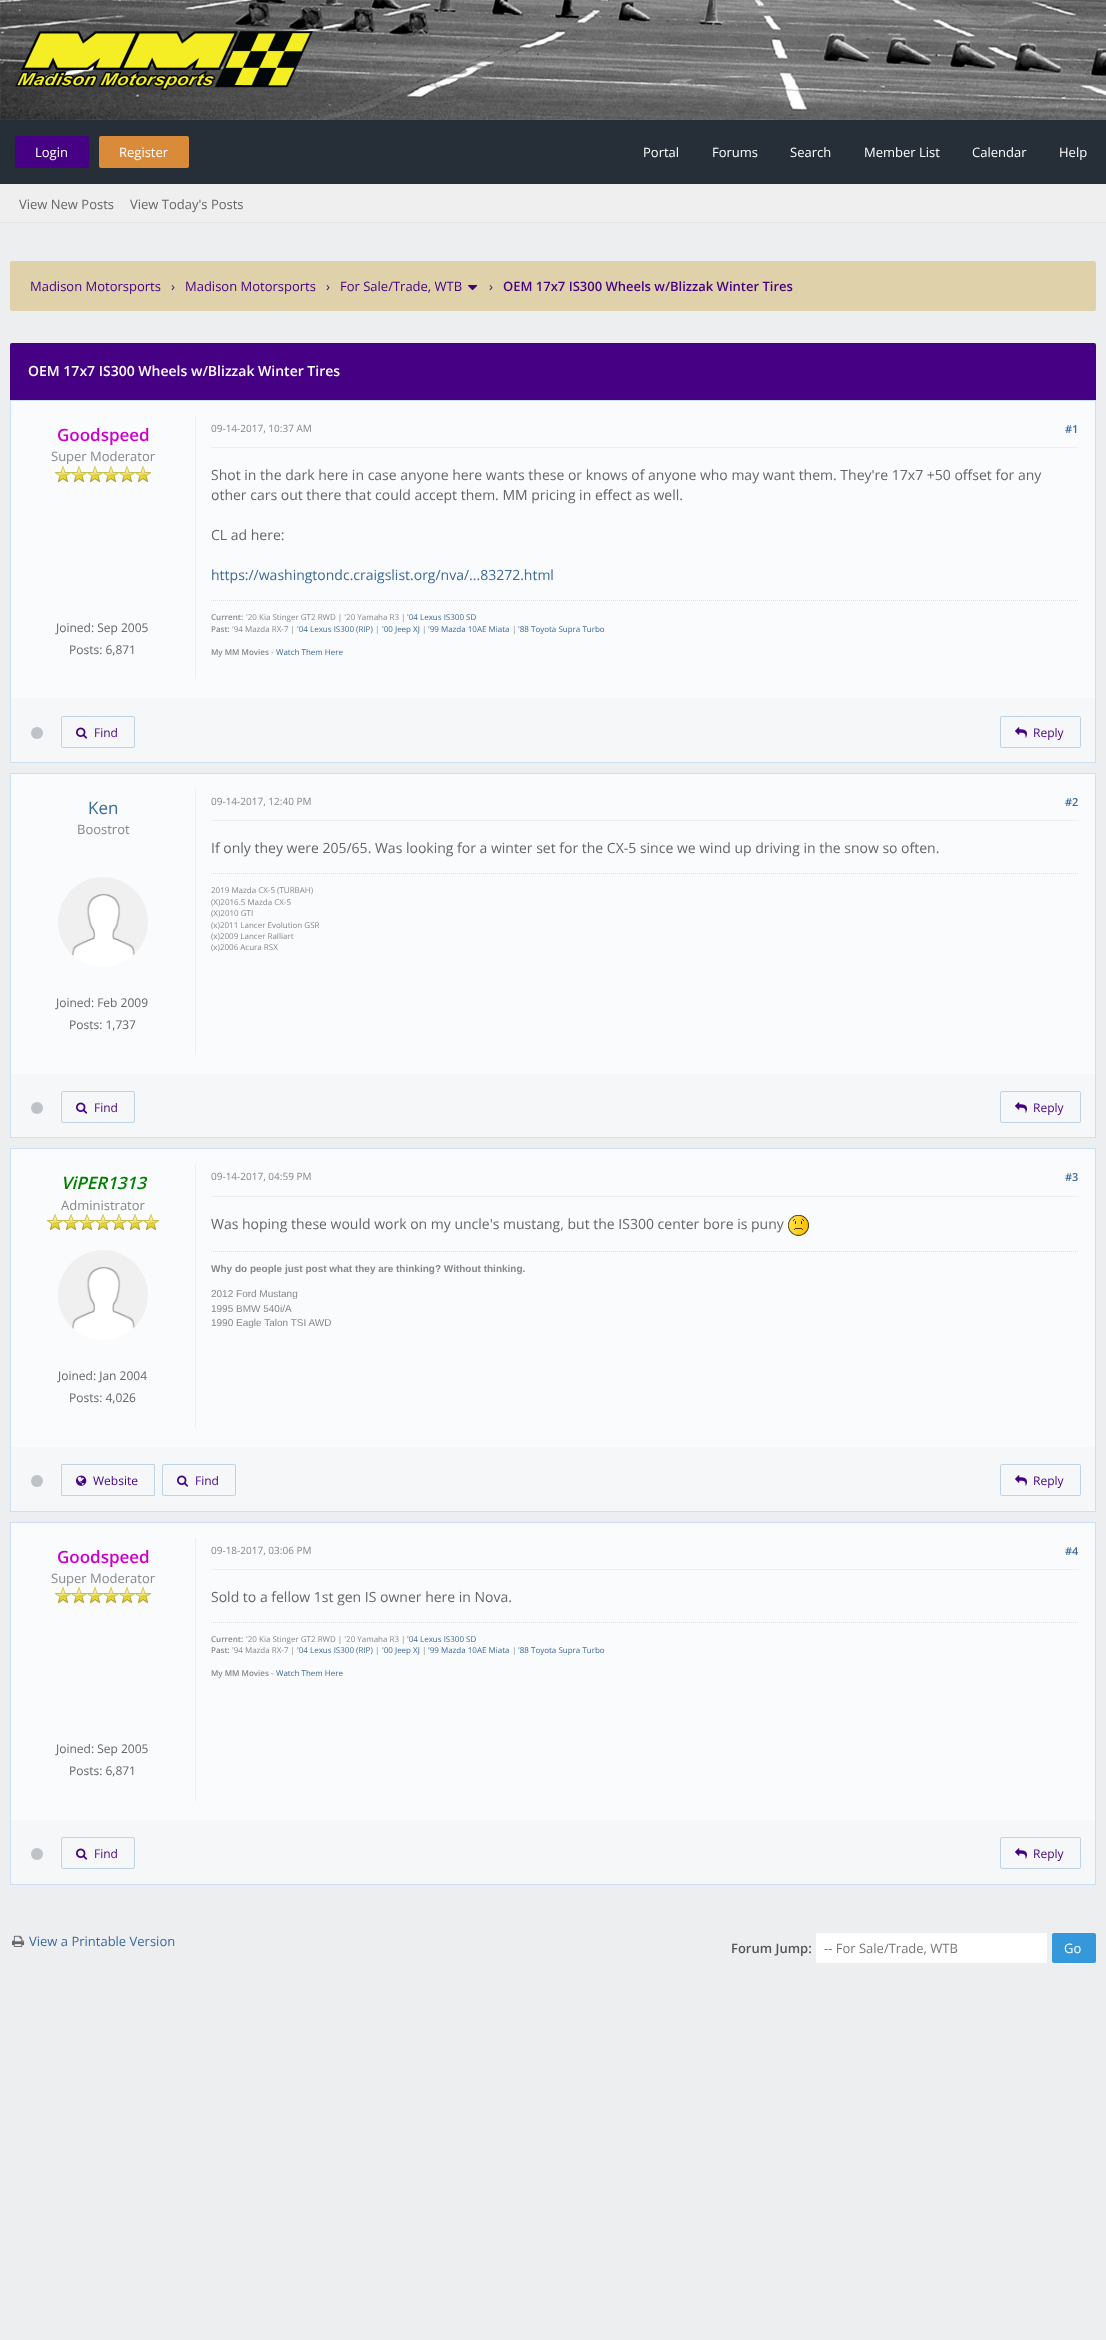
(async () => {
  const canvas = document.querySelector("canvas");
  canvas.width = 1106;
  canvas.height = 2340;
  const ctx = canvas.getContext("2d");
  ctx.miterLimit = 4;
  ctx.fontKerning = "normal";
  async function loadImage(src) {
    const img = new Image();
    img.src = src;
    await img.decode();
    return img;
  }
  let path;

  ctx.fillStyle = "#eceef0";
  ctx.fillRect(0, 0, 1106, 2340);
  ctx.drawImage(await loadImage("img/1.png"), 0, 0, 1106, 120);
  ctx.drawImage(await loadImage("img/2.png"), 15, 31, 298, 59);
  ctx.fillStyle = "#262e38";
  ctx.fillRect(0, 120, 1106, 64);
  ctx.fillStyle = "#450084";
  ctx.beginPath();
  ctx.roundRect(15, 136, 74, 32, 2);
  ctx.fill();
  ctx.fillStyle = "#d98b3a";
  ctx.beginPath();
  ctx.roundRect(99, 136, 90, 32, 2);
  ctx.fill();
  ctx.fillStyle = "#efefef";
  ctx.fillRect(0, 184, 1106, 38);
  ctx.fillStyle = "#e3e3e3";
  ctx.fillRect(0, 222, 1106, 1);
  ctx.fillStyle = "#dfd2aa";
  ctx.beginPath();
  ctx.roundRect(10.5, 261.5, 1085, 49, 1.5);
  ctx.fill();
  ctx.strokeStyle = "#dfd2aa";
  ctx.stroke();
  ctx.drawImage(await loadImage("img/3.png"), 468, 285, 10, 6);
  ctx.fillStyle = "#450084";
  ctx.beginPath();
  ctx.roundRect(10, 343, 1086, 57, [2, 2, 0, 0]);
  ctx.fill();
  ctx.fillStyle = "#fafbfc";
  ctx.fillRect(11, 401, 1084, 297);
  ctx.strokeStyle = "#cde0f1";
  ctx.strokeRect(10.5, 400.5, 1085, 362);
  ctx.drawImage(await loadImage("img/4.png"), 55, 466, 16, 16);
  ctx.drawImage(await loadImage("img/4.png"), 71, 466, 16, 16);
  ctx.drawImage(await loadImage("img/4.png"), 87, 466, 16, 16);
  ctx.drawImage(await loadImage("img/4.png"), 103, 466, 16, 16);
  ctx.drawImage(await loadImage("img/4.png"), 119, 466, 16, 16);
  ctx.drawImage(await loadImage("img/4.png"), 135, 466, 16, 16);
  ctx.fillStyle = "#eeeeee";
  ctx.fillRect(195, 416, 1, 263);
  ctx.fillRect(211, 447, 868, 1);
  path = new Path2D("M211 600.5H1079");
  ctx.strokeStyle = "#dddddd";
  ctx.setLineDash([1, 1]);
  ctx.stroke(path);
  ctx.fillStyle = "#f5f7f9";
  ctx.fillRect(11, 698, 1084, 64);
  ctx.fillStyle = "#bdc3c7";
  ctx.beginPath();
  ctx.arc(37, 733, 6, 0, Math.PI * 2);
  ctx.fill();
  ctx.beginPath();
  ctx.roundRect(61.5, 716.5, 73, 31, 1.5);
  ctx.strokeStyle = "#bed3e4";
  ctx.setLineDash([]);
  ctx.stroke();
  ctx.drawImage(await loadImage("img/5.png"), 76, 727, 12, 12);
  ctx.beginPath();
  ctx.roundRect(1000.5, 716.5, 80, 31, 1.5);
  ctx.stroke();
  ctx.drawImage(await loadImage("img/6.png"), 1015, 727, 12, 11);
  ctx.fillStyle = "#fafbfc";
  ctx.fillRect(11, 774, 1084, 300);
  ctx.strokeStyle = "#cde0f1";
  ctx.strokeRect(10.5, 773.5, 1085, 364);
  ctx.fillStyle = "#ffffff";
  ctx.beginPath();
  ctx.arc(103, 922, 45, 0, Math.PI * 2);
  ctx.fill();
  ctx.drawImage(await loadImage("img/7.png"), 58, 877, 90, 79);
  ctx.fillStyle = "#eeeeee";
  ctx.fillRect(195, 789, 1, 266);
  ctx.fillRect(211, 820, 868, 1);
  path = new Path2D("M211 873.5H1079");
  ctx.strokeStyle = "#dddddd";
  ctx.setLineDash([1, 1]);
  ctx.stroke(path);
  ctx.fillStyle = "#f5f7f9";
  ctx.fillRect(11, 1074, 1084, 63);
  ctx.fillStyle = "#bdc3c7";
  ctx.beginPath();
  ctx.arc(37, 1108, 6, 0, Math.PI * 2);
  ctx.fill();
  ctx.beginPath();
  ctx.roundRect(61.5, 1091.5, 73, 31, 1.5);
  ctx.strokeStyle = "#bed3e4";
  ctx.setLineDash([]);
  ctx.stroke();
  ctx.drawImage(await loadImage("img/5.png"), 76, 1102, 12, 12);
  ctx.beginPath();
  ctx.roundRect(1000.5, 1091.5, 80, 31, 1.5);
  ctx.stroke();
  ctx.drawImage(await loadImage("img/6.png"), 1015, 1102, 12, 11);
  ctx.fillStyle = "#fafbfc";
  ctx.fillRect(11, 1149, 1084, 298);
  ctx.strokeStyle = "#cde0f1";
  ctx.strokeRect(10.5, 1148.5, 1085, 363);
  ctx.drawImage(await loadImage("img/4.png"), 47, 1214, 16, 16);
  ctx.drawImage(await loadImage("img/4.png"), 63, 1214, 16, 16);
  ctx.drawImage(await loadImage("img/4.png"), 79, 1214, 16, 16);
  ctx.drawImage(await loadImage("img/4.png"), 95, 1214, 16, 16);
  ctx.drawImage(await loadImage("img/4.png"), 111, 1214, 16, 16);
  ctx.drawImage(await loadImage("img/4.png"), 127, 1214, 16, 16);
  ctx.drawImage(await loadImage("img/4.png"), 143, 1214, 16, 16);
  ctx.fillStyle = "#ffffff";
  ctx.beginPath();
  ctx.arc(103, 1295, 45, 0, Math.PI * 2);
  ctx.fill();
  ctx.drawImage(await loadImage("img/8.png"), 58, 1250, 90, 79);
  ctx.fillStyle = "#eeeeee";
  ctx.fillRect(195, 1164, 1, 264);
  ctx.fillRect(211, 1196, 868, 1);
  ctx.drawImage(await loadImage("img/9.png"), 788, 1215, 21, 21);
  path = new Path2D("M211 1251.5H1079");
  ctx.strokeStyle = "#dddddd";
  ctx.setLineDash([1, 1]);
  ctx.stroke(path);
  ctx.fillStyle = "#f5f7f9";
  ctx.fillRect(11, 1447, 1084, 64);
  ctx.fillStyle = "#bdc3c7";
  ctx.beginPath();
  ctx.arc(37, 1481, 6, 0, Math.PI * 2);
  ctx.fill();
  ctx.beginPath();
  ctx.roundRect(61.5, 1464.5, 93, 31, 0.5);
  ctx.strokeStyle = "#bed3e4";
  ctx.setLineDash([]);
  ctx.stroke();
  ctx.drawImage(await loadImage("img/10.png"), 76, 1475, 11, 11);
  ctx.beginPath();
  ctx.roundRect(162.5, 1464.5, 73, 31, 1.5);
  ctx.stroke();
  ctx.drawImage(await loadImage("img/5.png"), 177, 1475, 12, 12);
  ctx.beginPath();
  ctx.roundRect(1000.5, 1464.5, 80, 31, 1.5);
  ctx.stroke();
  ctx.drawImage(await loadImage("img/6.png"), 1015, 1475, 12, 11);
  ctx.fillStyle = "#fafbfc";
  ctx.fillRect(11, 1523, 1084, 297);
  ctx.strokeStyle = "#cde0f1";
  ctx.strokeRect(10.5, 1522.5, 1085, 362);
  ctx.drawImage(await loadImage("img/4.png"), 55, 1587, 16, 16);
  ctx.drawImage(await loadImage("img/4.png"), 71, 1587, 16, 16);
  ctx.drawImage(await loadImage("img/4.png"), 87, 1587, 16, 16);
  ctx.drawImage(await loadImage("img/4.png"), 103, 1587, 16, 16);
  ctx.drawImage(await loadImage("img/4.png"), 119, 1587, 16, 16);
  ctx.drawImage(await loadImage("img/4.png"), 135, 1587, 16, 16);
  ctx.fillStyle = "#eeeeee";
  ctx.fillRect(195, 1538, 1, 263);
  ctx.fillRect(211, 1569, 868, 1);
  path = new Path2D("M211 1622.5H1079");
  ctx.strokeStyle = "#dddddd";
  ctx.setLineDash([1, 1]);
  ctx.stroke(path);
  ctx.fillStyle = "#f5f7f9";
  ctx.fillRect(11, 1820, 1084, 64);
  ctx.fillStyle = "#bdc3c7";
  ctx.beginPath();
  ctx.arc(37, 1854, 6, 0, Math.PI * 2);
  ctx.fill();
  ctx.beginPath();
  ctx.roundRect(61.5, 1837.5, 73, 31, 1.5);
  ctx.strokeStyle = "#bed3e4";
  ctx.setLineDash([]);
  ctx.stroke();
  ctx.drawImage(await loadImage("img/5.png"), 76, 1848, 12, 12);
  ctx.beginPath();
  ctx.roundRect(1000.5, 1837.5, 80, 31, 1.5);
  ctx.stroke();
  ctx.drawImage(await loadImage("img/6.png"), 1015, 1848, 12, 11);
  ctx.drawImage(await loadImage("img/11.png"), 12, 1935, 13, 12);
  ctx.fillStyle = "#ffffff";
  ctx.beginPath();
  ctx.roundRect(815.5, 1932.5, 232, 31, 0.5);
  ctx.fill();
  ctx.strokeStyle = "#eeeeee";
  ctx.stroke();
  ctx.fillStyle = "#3498db";
  ctx.beginPath();
  ctx.roundRect(1052, 1933, 44, 30, 2);
  ctx.fill();
  ctx.font = "13px Open Sans";
  ctx.fillStyle = "#ffffff";
  for (const [text, x, y] of [
    ["Login", 35, 157],
    ["Register", 119, 157],
    ["Portal", 643, 157],
    ["Forums", 712, 157],
    ["Search", 790, 157],
    ["Member List", 864, 157],
    ["Calendar", 972, 157],
    ["Help", 1059, 157],
  ]) {
    ctx.fillText(text, x, y);
  }
  ctx.fillStyle = "#666666";
  ctx.fillText("View New Posts", 19, 209);
  ctx.fillText("View Today's Posts", 130, 209);
  ctx.fillStyle = "#450084";
  for (const [text, x, y] of [
    ["Madison Motorsports", 30, 291],
    ["›", 171, 291],
    ["Madison Motorsports", 185, 291],
    ["›", 326, 291],
    ["For Sale/Trade, WTB", 340, 291],
    ["›", 489, 291],
  ]) {
    ctx.fillText(text, x, y);
  }
  ctx.font = "600 13px Open Sans";
  ctx.fillText("OEM 17x7 IS300 Wheels w/Blizzak Winter Tires", 503, 291);
  ctx.font = "600 14px Open Sans";
  ctx.fillStyle = "#ffffff";
  ctx.fillText("OEM 17x7 IS300 Wheels w/Blizzak Winter Tires", 28, 376);
  ctx.font = "600 17px Open Sans";
  ctx.fillStyle = "#cc00cc";
  ctx.fillText("Goodspeed", 57, 441);
  ctx.font = "13px Open Sans";
  ctx.fillStyle = "#888888";
  ctx.fillText("Super Moderator", 51, 461);
  ctx.font = "12px Open Sans";
  ctx.fillStyle = "#666666";
  ctx.fillText("Joined: Sep 2005", 56, 632);
  ctx.fillText("Posts: 6,871", 69, 654);
  ctx.font = "10px Open Sans";
  ctx.fillStyle = "#888888";
  ctx.fillText("09-14-2017, 10:37 AM", 211, 432);
  ctx.font = "600 11px Open Sans";
  ctx.fillStyle = "#3c699c";
  ctx.fillText("#1", 1065, 433);
  ctx.font = "14px Open Sans";
  ctx.fillStyle = "#666666";
  for (const [text, x, y] of [
    ["Shot in the dark here in case anyone here wants these or knows of anyone who may want them. They're 17x7 +50 offset for any", 211, 480],
    ["other cars out there that could accept them. MM pricing in effect as well.", 211, 500],
    ["CL ad here:", 211, 540],
  ]) {
    ctx.fillText(text, x, y);
  }
  ctx.fillStyle = "#3c699c";
  ctx.fillText("https://washingtondc.craigslist.org/nva/...83272.html", 211, 580);
  ctx.font = "600 8px Open Sans";
  ctx.fillStyle = "#888888";
  ctx.fillText("Current:", 211, 620);
  ctx.font = "8px Open Sans";
  ctx.fillText("'20 Kia Stinger GT2 RWD | '20 Yamaha R3 |", 246, 620);
  ctx.fillStyle = "#3c699c";
  ctx.fillText("'04 Lexus IS300 SD", 407, 620);
  ctx.font = "600 8px Open Sans";
  ctx.fillStyle = "#888888";
  ctx.fillText("Past:", 211, 632);
  ctx.font = "8px Open Sans";
  ctx.fillText("'94 Mazda RX-7 |", 232, 632);
  ctx.fillStyle = "#3c699c";
  ctx.fillText("'04 Lexus IS300 (RIP)", 297, 632);
  ctx.fillStyle = "#888888";
  ctx.fillText("|", 375, 632);
  ctx.fillStyle = "#3c699c";
  ctx.fillText("'00 Jeep XJ", 382, 632);
  ctx.fillStyle = "#888888";
  ctx.fillText("|", 422, 632);
  ctx.fillStyle = "#3c699c";
  ctx.fillText("'99 Mazda 10AE Miata", 428, 632);
  ctx.fillStyle = "#888888";
  ctx.fillText("|", 512, 632);
  ctx.fillStyle = "#3c699c";
  ctx.fillText("'88 Toyota Supra Turbo", 518, 632);
  ctx.font = "600 8px Open Sans";
  ctx.fillStyle = "#888888";
  ctx.fillText("My MM Movies", 211, 655);
  ctx.font = "8px Open Sans";
  ctx.fillText("-", 271, 655);
  ctx.fillStyle = "#3c699c";
  ctx.fillText("Watch Them Here", 276, 655);
  ctx.font = "12px Open Sans";
  ctx.fillStyle = "#450084";
  ctx.fillText("Find", 94, 737);
  ctx.fillText("Reply", 1033, 737);
  ctx.font = "17px Open Sans";
  ctx.fillStyle = "#3c699c";
  ctx.fillText("Ken", 88, 814);
  ctx.font = "13px Open Sans";
  ctx.fillStyle = "#888888";
  ctx.fillText("Boostrot", 77, 834);
  ctx.font = "12px Open Sans";
  ctx.fillStyle = "#666666";
  ctx.fillText("Joined: Feb 2009", 56, 1007);
  ctx.fillText("Posts: 1,737", 69, 1029);
  ctx.font = "10px Open Sans";
  ctx.fillStyle = "#888888";
  ctx.fillText("09-14-2017, 12:40 PM", 211, 805);
  ctx.font = "600 11px Open Sans";
  ctx.fillStyle = "#3c699c";
  ctx.fillText("#2", 1065, 806);
  ctx.font = "14px Open Sans";
  ctx.fillStyle = "#666666";
  ctx.fillText("If only they were 205/65. Was looking for a winter set for the CX-5 since we wind up driving in the snow so often.", 211, 853);
  ctx.font = "8px Open Sans";
  ctx.fillStyle = "#888888";
  for (const [text, x, y] of [
    ["2019 Mazda CX-5 (TURBAH)", 211, 893],
    ["(X)2016.5 Mazda CX-5", 211, 905],
    ["(X)2010 GTI", 211, 916],
    ["(x)2011 Lancer Evolution GSR", 211, 928],
    ["(x)2009 Lancer Ralliart", 211, 939],
    ["(x)2006 Acura RSX", 211, 950],
  ]) {
    ctx.fillText(text, x, y);
  }
  ctx.font = "12px Open Sans";
  ctx.fillStyle = "#450084";
  ctx.fillText("Find", 94, 1112);
  ctx.fillText("Reply", 1033, 1112);
  ctx.font = "italic 600 17px Open Sans";
  ctx.fillStyle = "#008000";
  ctx.fillText("ViPER1313", 61, 1189);
  ctx.font = "13px Open Sans";
  ctx.fillStyle = "#888888";
  ctx.fillText("Administrator", 61, 1210);
  ctx.font = "12px Open Sans";
  ctx.fillStyle = "#666666";
  ctx.fillText("Joined: Jan 2004", 58, 1380);
  ctx.fillText("Posts: 4,026", 69, 1402);
  ctx.font = "10px Open Sans";
  ctx.fillStyle = "#888888";
  ctx.fillText("09-14-2017, 04:59 PM", 211, 1180);
  ctx.font = "600 11px Open Sans";
  ctx.fillStyle = "#3c699c";
  ctx.fillText("#3", 1065, 1181);
  ctx.font = "14px Open Sans";
  ctx.fillStyle = "#666666";
  ctx.fillText("Was hoping these would work on my uncle's mustang, but the IS300 center bore is puny", 211, 1229);
  ctx.font = "bold 10px Liberation Sans";
  ctx.fillStyle = "#888888";
  ctx.fillText("Why do people just post what they are thinking? Without thinking.", 211, 1272);
  ctx.font = "10px Liberation Sans";
  for (const [text, x, y] of [
    ["2012 Ford Mustang", 211, 1297],
    ["1995 BMW 540i/A", 211, 1312],
    ["1990 Eagle Talon TSI AWD", 211, 1326],
  ]) {
    ctx.fillText(text, x, y);
  }
  ctx.font = "12px Open Sans";
  ctx.fillStyle = "#450084";
  for (const [text, x, y] of [
    ["Website", 93, 1485],
    ["Find", 195, 1485],
    ["Reply", 1033, 1485],
  ]) {
    ctx.fillText(text, x, y);
  }
  ctx.font = "600 17px Open Sans";
  ctx.fillStyle = "#cc00cc";
  ctx.fillText("Goodspeed", 57, 1563);
  ctx.font = "13px Open Sans";
  ctx.fillStyle = "#888888";
  ctx.fillText("Super Moderator", 51, 1583);
  ctx.font = "12px Open Sans";
  ctx.fillStyle = "#666666";
  ctx.fillText("Joined: Sep 2005", 56, 1753);
  ctx.fillText("Posts: 6,871", 69, 1775);
  ctx.font = "10px Open Sans";
  ctx.fillStyle = "#888888";
  ctx.fillText("09-18-2017, 03:06 PM", 211, 1554);
  ctx.font = "600 11px Open Sans";
  ctx.fillStyle = "#3c699c";
  ctx.fillText("#4", 1065, 1555);
  ctx.font = "14px Open Sans";
  ctx.fillStyle = "#666666";
  ctx.fillText("Sold to a fellow 1st gen IS owner here in Nova.", 211, 1602);
  ctx.font = "600 8px Open Sans";
  ctx.fillStyle = "#888888";
  ctx.fillText("Current:", 211, 1642);
  ctx.font = "8px Open Sans";
  ctx.fillText("'20 Kia Stinger GT2 RWD | '20 Yamaha R3 |", 246, 1642);
  ctx.fillStyle = "#3c699c";
  ctx.fillText("'04 Lexus IS300 SD", 407, 1642);
  ctx.font = "600 8px Open Sans";
  ctx.fillStyle = "#888888";
  ctx.fillText("Past:", 211, 1653);
  ctx.font = "8px Open Sans";
  ctx.fillText("'94 Mazda RX-7 |", 232, 1653);
  ctx.fillStyle = "#3c699c";
  ctx.fillText("'04 Lexus IS300 (RIP)", 297, 1653);
  ctx.fillStyle = "#888888";
  ctx.fillText("|", 375, 1653);
  ctx.fillStyle = "#3c699c";
  ctx.fillText("'00 Jeep XJ", 382, 1653);
  ctx.fillStyle = "#888888";
  ctx.fillText("|", 422, 1653);
  ctx.fillStyle = "#3c699c";
  ctx.fillText("'99 Mazda 10AE Miata", 428, 1653);
  ctx.fillStyle = "#888888";
  ctx.fillText("|", 512, 1653);
  ctx.fillStyle = "#3c699c";
  ctx.fillText("'88 Toyota Supra Turbo", 518, 1653);
  ctx.font = "600 8px Open Sans";
  ctx.fillStyle = "#888888";
  ctx.fillText("My MM Movies", 211, 1676);
  ctx.font = "8px Open Sans";
  ctx.fillText("-", 271, 1676);
  ctx.fillStyle = "#3c699c";
  ctx.fillText("Watch Them Here", 276, 1676);
  ctx.font = "12px Open Sans";
  ctx.fillStyle = "#450084";
  ctx.fillText("Find", 94, 1858);
  ctx.fillText("Reply", 1033, 1858);
  ctx.font = "13px Open Sans";
  ctx.fillStyle = "#3c699c";
  ctx.fillText("View a Printable Version", 29, 1946);
  ctx.font = "600 13px Open Sans";
  ctx.fillStyle = "#555555";
  ctx.fillText("Forum Jump:", 731, 1953);
  ctx.font = "13px Open Sans";
  ctx.fillStyle = "#777777";
  ctx.fillText("-- For Sale/Trade, WTB", 824, 1953);
  ctx.fillStyle = "#ffffff";
  ctx.fillText("Go", 1064, 1953);
})();
